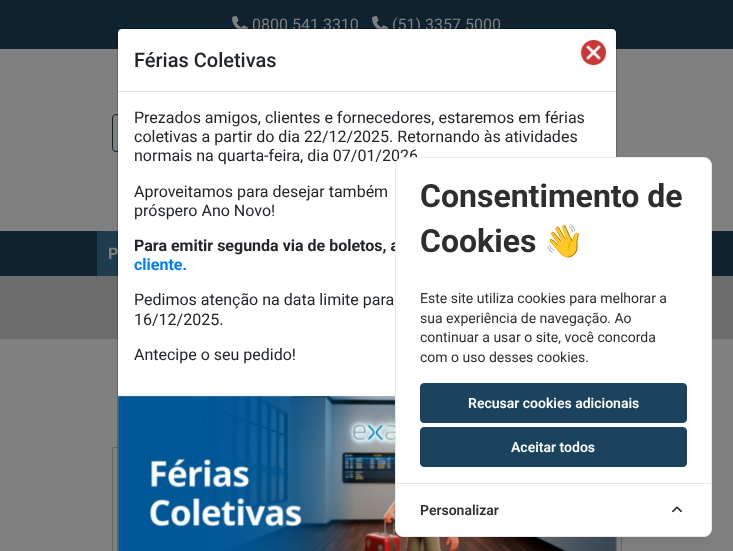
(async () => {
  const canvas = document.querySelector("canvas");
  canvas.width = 733;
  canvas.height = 551;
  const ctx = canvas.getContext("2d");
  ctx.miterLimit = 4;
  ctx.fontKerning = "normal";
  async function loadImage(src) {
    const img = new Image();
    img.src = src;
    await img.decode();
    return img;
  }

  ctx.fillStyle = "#808080";
  ctx.fillRect(0, 0, 733, 551);
  ctx.fillStyle = "#0e222f";
  ctx.fillRect(0, 0, 733, 49);
  ctx.drawImage(await loadImage("img/1.png"), 232, 16, 16, 13);
  ctx.drawImage(await loadImage("img/1.png"), 372, 16, 16, 13);
  ctx.beginPath();
  ctx.roundRect(112.5, 114.5, 449, 37, 3.5);
  ctx.strokeStyle = "#0e222f";
  ctx.stroke();
  for (const [x, y, w, h, color] of [
    [0, 231, 733, 45, "#0e222f"],
    [97, 231, 21, 45, "#1f3c4f"],
    [0, 276, 733, 63, "#6d6d6d"],
  ]) {
    ctx.fillStyle = color;
    ctx.fillRect(x, y, w, h);
  }
  ctx.strokeStyle = "#666666";
  ctx.strokeRect(112.5, 447.5, 509, 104);
  ctx.font = "16px Roboto";
  ctx.fillStyle = "#808080";
  ctx.fillText("0800 541 3310", 252, 30);
  ctx.fillText("(51) 3357 5000", 392, 30);
  ctx.font = "bold 16px Roboto";
  ctx.fillText("P", 108, 259);
  ctx.fillStyle = "#ffffff";
  ctx.beginPath();
  ctx.roundRect(118, 29, 498, 522, [4, 4, 0, 0]);
  ctx.fill();
  ctx.beginPath();
  ctx.roundRect(117.5, 28.5, 499, 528, 4.5);
  ctx.strokeStyle = "rgba(0, 0, 0, 0.2)";
  ctx.stroke();
  ctx.fillStyle = "#dee2e6";
  ctx.fillRect(118, 91, 498, 1);
  ctx.font = "500 20px Roboto";
  ctx.fillStyle = "#212529";
  ctx.fillText("Férias Coletivas", 134, 67);
  ctx.drawImage(await loadImage("img/2.png"), 580, 40, 26, 25);
  ctx.font = "16px Roboto";
  for (const [text, x, y] of [
    ["Prezados amigos, clientes e fornecedores, estaremos em férias", 134, 123],
    ["coletivas a partir do dia 22/12/2025. Retornando às atividades", 134, 142],
    ["normais na quarta-feira, dia 07/01/2026", 134, 161],
    ["Aproveitamos para desejar também", 134, 197],
    ["próspero Ano Novo!", 134, 216],
  ]) {
    ctx.fillText(text, x, y);
  }
  ctx.font = "bold 16px Roboto";
  ctx.fillText("Para emitir segunda via de boletos, a", 134, 251);
  ctx.fillStyle = "#007bff";
  ctx.fillText("cliente.", 134, 270);
  ctx.font = "16px Roboto";
  ctx.fillStyle = "#212529";
  for (const [text, x, y] of [
    ["Pedimos atenção na data limite para", 134, 305],
    ["16/12/2025.", 134, 325],
    ["Antecipe o seu pedido!", 134, 360],
  ]) {
    ctx.fillText(text, x, y);
  }
  ctx.drawImage(await loadImage("img/3.png"), 117, 395, 499, 156);
  ctx.fillStyle = "rgba(0, 0, 0, 0.08)";
  ctx.filter = "blur(6px)";
  ctx.beginPath();
  ctx.rect(403, 177, 301, 364);
  ctx.fill();
  ctx.filter = "none";
  ctx.fillStyle = "#ffffff";
  ctx.beginPath();
  ctx.roundRect(395.5, 157.5, 316, 379, 7.5);
  ctx.fill();
  ctx.strokeStyle = "#e7e8e9";
  ctx.stroke();
  ctx.font = "bold 32px Roboto";
  ctx.fillStyle = "#2c2e30";
  ctx.fillText("Consentimento de", 420, 207);
  ctx.fillText("Cookies", 420, 252);
  ctx.font = "bold 32px Noto Color Emoji";
  ctx.fillText("👋", 544, 252);
  ctx.font = "14px Roboto";
  for (const [text, x, y] of [
    ["Este site utiliza cookies para melhorar a", 420, 303],
    ["sua experiência de navegação. Ao", 420, 323],
    ["continuar a usar o site, você concorda", 420, 342],
    ["com o uso desses cookies.", 420, 362],
  ]) {
    ctx.fillText(text, x, y);
  }
  ctx.fillStyle = "#1b435d";
  ctx.beginPath();
  ctx.roundRect(420.5, 383.5, 266, 39, 3.5);
  ctx.fill();
  ctx.strokeStyle = "#1b435d";
  ctx.stroke();
  ctx.font = "600 14px Roboto";
  ctx.fillStyle = "#ffffff";
  ctx.fillText("Recusar cookies adicionais", 468, 408);
  ctx.fillStyle = "#1b435d";
  ctx.beginPath();
  ctx.roundRect(420.5, 427.5, 266, 39, 3.5);
  ctx.fill();
  ctx.stroke();
  ctx.fillStyle = "#ffffff";
  ctx.fillText("Aceitar todos", 511, 452);
  ctx.fillStyle = "#e7e8e9";
  ctx.fillRect(396, 483, 315, 1);
  ctx.fillStyle = "#2c2e30";
  ctx.fillText("Personalizar", 420, 515);
  ctx.drawImage(await loadImage("img/4.png"), 672, 506, 10, 7);
})();
